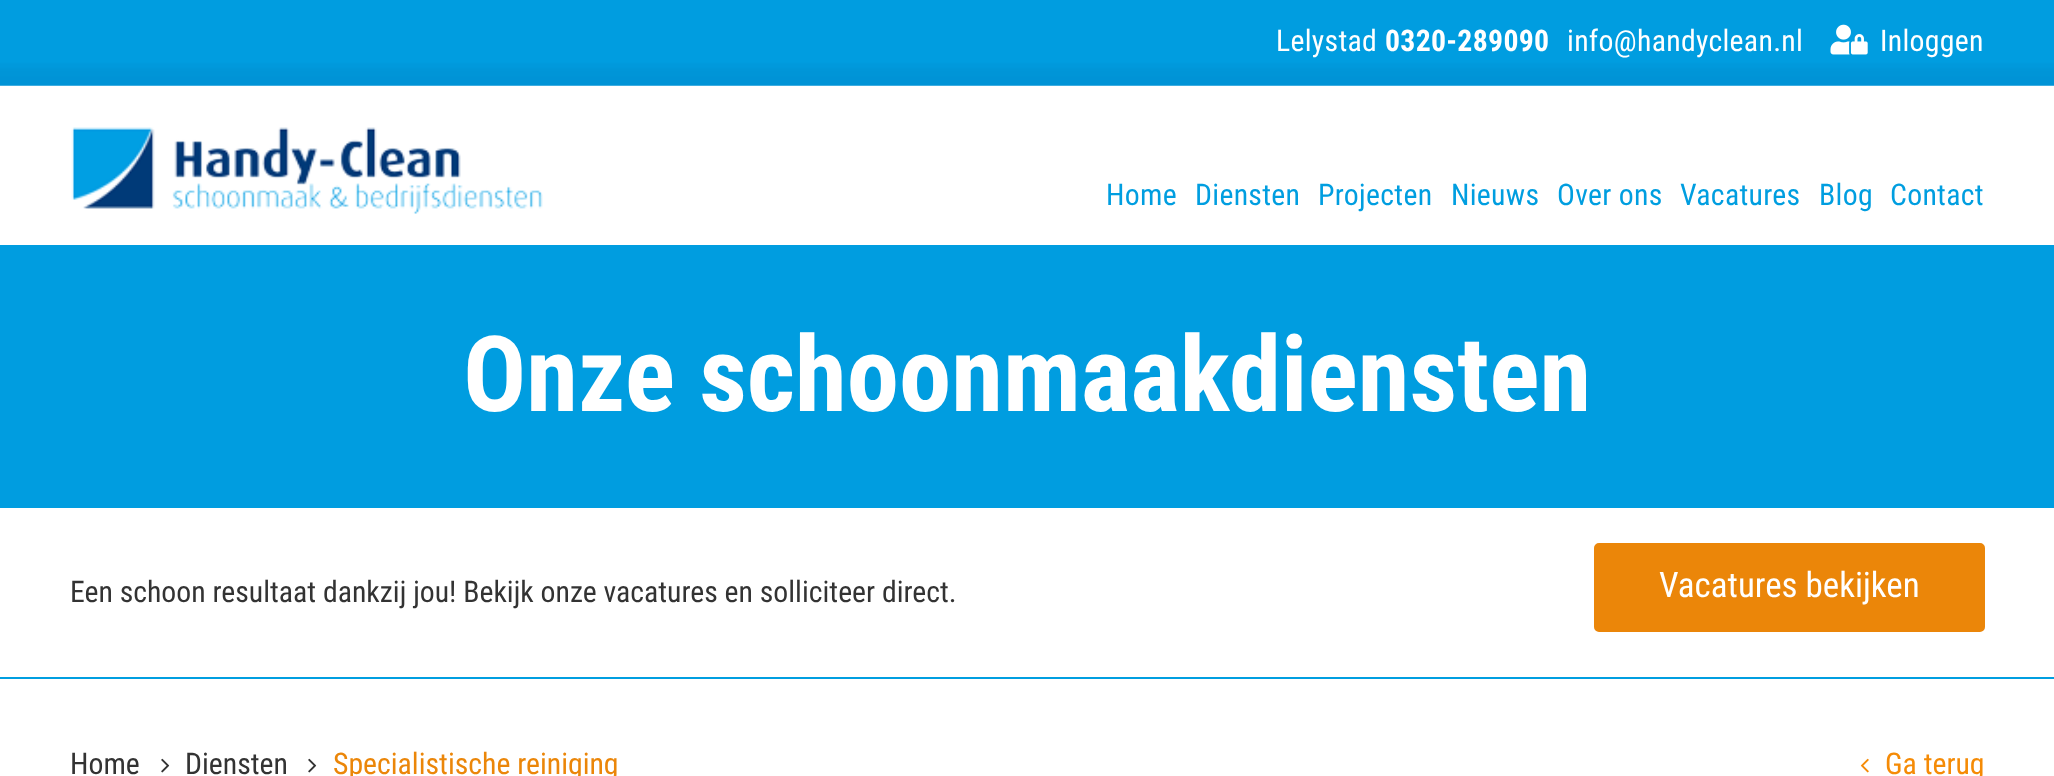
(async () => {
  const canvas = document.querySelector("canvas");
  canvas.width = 2054;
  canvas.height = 776;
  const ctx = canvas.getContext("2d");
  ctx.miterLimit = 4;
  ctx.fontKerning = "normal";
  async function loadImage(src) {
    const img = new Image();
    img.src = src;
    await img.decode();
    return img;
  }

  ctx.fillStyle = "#ffffff";
  ctx.fillRect(0, 0, 2054, 776);
  ctx.drawImage(await loadImage("img/1.png"), 0, 0, 2054, 86);
  ctx.drawImage(await loadImage("img/2.png"), 1830, 24, 38, 31);
  ctx.drawImage(await loadImage("img/3.png"), 71, 127, 472, 87);
  ctx.fillStyle = "#009de0";
  ctx.fillRect(0, 245, 2054, 263);
  ctx.fillStyle = "#009ee0";
  ctx.fillRect(0, 677, 2054, 2);
  ctx.fillStyle = "#eb8609";
  ctx.beginPath();
  ctx.roundRect(1596, 545, 387, 85, 3);
  ctx.fill();
  ctx.strokeStyle = "#eb8609";
  ctx.lineWidth = 4;
  ctx.stroke();
  ctx.drawImage(await loadImage("img/4.png"), 161, 758, 9, 15);
  ctx.drawImage(await loadImage("img/4.png"), 308, 758, 9, 15);
  ctx.drawImage(await loadImage("img/5.png"), 1860, 758, 9, 15);
  ctx.letterSpacing = "0.3px";
  ctx.font = "29.75px Roboto Condensed";
  ctx.fillStyle = "#ffffff";
  ctx.fillText("Lelystad", 1276, 51);
  ctx.font = "bold 29.75px Roboto Condensed";
  ctx.fillText("0320-289090", 1385, 51);
  ctx.font = "29.75px Roboto Condensed";
  ctx.fillText("info@handyclean.nl", 1567, 51);
  ctx.fillText("Inloggen", 1880, 51);
  ctx.fillStyle = "#009ee0";
  for (const [text, x, y] of [
    ["Home", 1106, 205],
    ["Diensten", 1195, 205],
    ["Projecten", 1318, 205],
    ["Nieuws", 1451, 205],
    ["Over ons", 1557, 205],
    ["Vacatures", 1680, 205],
    ["Blog", 1819, 205],
    ["Contact", 1890, 205],
  ]) {
    ctx.fillText(text, x, y);
  }
  ctx.letterSpacing = "0px";
  ctx.font = "bold 105px Roboto Condensed";
  ctx.fillStyle = "#ffffff";
  ctx.fillText("Onze schoonmaakdiensten", 463, 411);
  ctx.font = "29.75px Roboto Condensed";
  ctx.fillStyle = "#333333";
  ctx.fillText("Een schoon resultaat dankzij jou! Bekijk onze vacatures en solliciteer direct.", 70, 602);
  ctx.font = "35px Roboto Condensed";
  ctx.fillStyle = "#ffffff";
  ctx.fillText("Vacatures bekijken", 1659, 597);
  ctx.font = "29.75px Roboto Condensed";
  ctx.fillStyle = "#333333";
  ctx.fillText("Home", 70, 774);
  ctx.fillText("Diensten", 185, 774);
  ctx.fillStyle = "#eb8609";
  ctx.fillText("Specialistische reiniging", 333, 774);
  ctx.fillStyle = "#f58b06";
  ctx.fillText("Ga terug", 1885, 774);
})();
